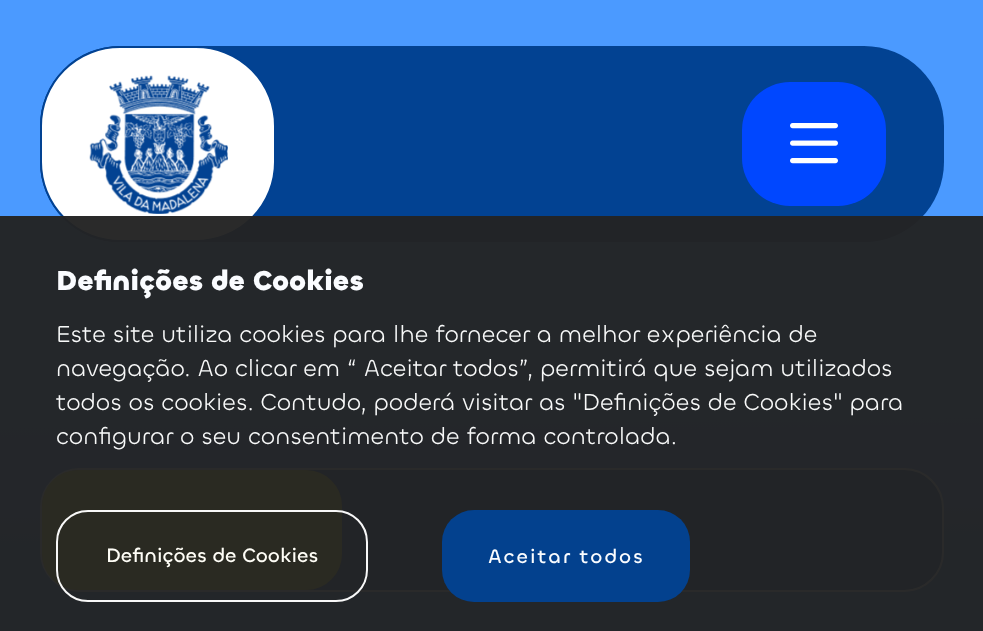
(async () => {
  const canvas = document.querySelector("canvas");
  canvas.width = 983;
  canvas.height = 631;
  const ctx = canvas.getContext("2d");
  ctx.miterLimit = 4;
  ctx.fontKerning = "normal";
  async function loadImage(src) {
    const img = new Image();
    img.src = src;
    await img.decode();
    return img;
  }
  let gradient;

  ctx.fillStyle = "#ffffff";
  ctx.fillRect(0, 0, 983, 631);
  gradient = ctx.createLinearGradient(476, -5.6, 508, 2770);
  gradient.addColorStop(0.12, "#4b9aff");
  gradient.addColorStop(0.42, "#003a85");
  gradient.addColorStop(0.79, "#278ee5");
  gradient.addColorStop(0.98, "#ffffff");
  ctx.fillStyle = gradient;
  ctx.fillRect(0, 0, 983, 631);
  ctx.fillStyle = "#024292";
  ctx.beginPath();
  ctx.roundRect(40, 46, 904, 196, 80);
  ctx.fill();
  ctx.fillStyle = "#ffffff";
  ctx.beginPath();
  ctx.roundRect(41, 47, 234, 194, 79);
  ctx.fill();
  ctx.strokeStyle = "#024292";
  ctx.lineWidth = 2;
  ctx.stroke();
  ctx.drawImage(await loadImage("img/1.png"), 89, 75, 139, 139);
  ctx.fillStyle = "#0047ff";
  ctx.beginPath();
  ctx.roundRect(742, 82, 144, 124, 48);
  ctx.fill();
  ctx.drawImage(await loadImage("img/2.png"), 790, 123, 48, 41);
  ctx.fillStyle = "#024292";
  ctx.beginPath();
  ctx.roundRect(41, 469, 902, 122, 39);
  ctx.fill();
  ctx.strokeStyle = "#ffffff";
  ctx.stroke();
  ctx.fillStyle = "#ffe500";
  ctx.beginPath();
  ctx.roundRect(43, 471, 298, 118, 35);
  ctx.fill();
  ctx.strokeStyle = "#ffe500";
  ctx.stroke();
  ctx.fillStyle = "rgba(35, 35, 35, 0.97)";
  ctx.fillRect(0, 216, 983, 415);
  ctx.beginPath();
  ctx.roundRect(57, 511, 310, 90, 31);
  ctx.strokeStyle = "rgba(255, 255, 255, 0.97)";
  ctx.stroke();
  ctx.fillStyle = "rgba(2, 66, 146, 0.97)";
  ctx.beginPath();
  ctx.roundRect(442, 510, 248, 92, 32);
  ctx.fill();
  ctx.font = "bold 28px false";
  ctx.fillStyle = "#fafcff";
  ctx.fillText("Definições de Cookies", 56, 290);
  ctx.font = "24px false";
  ctx.fillStyle = "#f8f9f9";
  for (const [text, x, y] of [
    ["Este site utiliza cookies para lhe fornecer a melhor experiência de", 56, 342],
    ["navegação. Ao clicar em “ Aceitar todos”, permitirá que sejam utilizados", 56, 376],
    ["todos os cookies. Contudo, poderá visitar as \"Definições de Cookies\" para", 56, 410],
    ["configurar o seu consentimento de forma controlada.", 56, 444],
  ]) {
    ctx.fillText(text, x, y);
  }
  ctx.font = "500 20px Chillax";
  ctx.fillStyle = "#fffef7";
  ctx.fillText("Definições de Cookies", 106, 562);
  ctx.letterSpacing = "2px";
  ctx.fillStyle = "#fafcff";
  ctx.fillText("Aceitar todos", 488, 563);
})();
